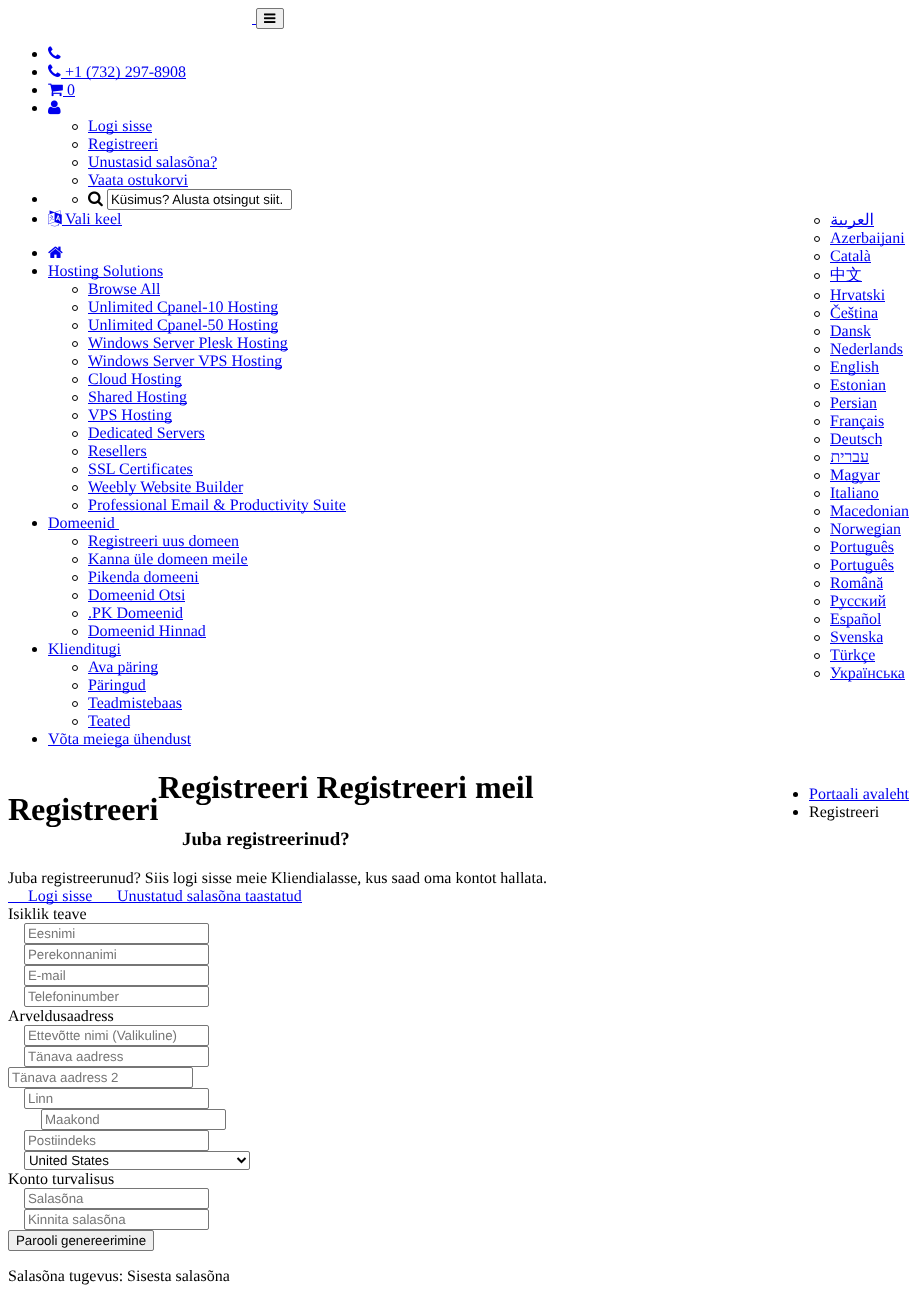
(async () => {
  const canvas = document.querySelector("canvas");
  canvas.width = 917;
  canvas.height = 1302;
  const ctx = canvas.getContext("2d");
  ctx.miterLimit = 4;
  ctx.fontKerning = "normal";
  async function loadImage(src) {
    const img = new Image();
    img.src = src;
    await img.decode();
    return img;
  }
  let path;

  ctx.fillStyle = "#ffffff";
  ctx.fillRect(0, 0, 917, 1302);
  ctx.fillStyle = "#0000ee";
  ctx.fillRect(252, 24, 4, 1);
  ctx.fillStyle = "#efefef";
  ctx.beginPath();
  ctx.roundRect(256.5, 8.5, 27, 20, 1.5);
  ctx.fill();
  ctx.strokeStyle = "#767676";
  ctx.stroke();
  ctx.drawImage(await loadImage("img/1.png"), 264, 13, 12, 10);
  ctx.fillStyle = "#000000";
  ctx.beginPath();
  ctx.arc(34.5, 54.5, 2.5, 0, Math.PI * 2);
  ctx.fill();
  ctx.drawImage(await loadImage("img/2.png"), 48, 46, 13, 13);
  ctx.beginPath();
  ctx.arc(34.5, 72.5, 2.5, 0, Math.PI * 2);
  ctx.fill();
  ctx.drawImage(await loadImage("img/2.png"), 48, 64, 13, 13);
  ctx.fillStyle = "#0000ee";
  ctx.fillRect(61, 78, 125, 1);
  ctx.fillStyle = "#000000";
  ctx.beginPath();
  ctx.arc(34.5, 90.5, 2.5, 0, Math.PI * 2);
  ctx.fill();
  ctx.drawImage(await loadImage("img/3.png"), 48, 83, 15, 14);
  ctx.fillStyle = "#0000ee";
  ctx.fillRect(63, 96, 12, 1);
  ctx.fillStyle = "#000000";
  ctx.beginPath();
  ctx.arc(34.5, 108.5, 2.5, 0, Math.PI * 2);
  ctx.fill();
  ctx.drawImage(await loadImage("img/4.png"), 48, 100, 13, 15);
  ctx.beginPath();
  ctx.arc(75, 127, 2.5, 0, Math.PI * 2);
  ctx.strokeStyle = "#000000";
  ctx.stroke();
  ctx.fillStyle = "#0000ee";
  ctx.fillRect(88, 132, 64, 1);
  ctx.beginPath();
  ctx.arc(75, 145, 2.5, 0, Math.PI * 2);
  ctx.stroke();
  ctx.fillRect(88, 150, 70, 1);
  ctx.beginPath();
  ctx.arc(75, 163, 2.5, 0, Math.PI * 2);
  ctx.stroke();
  ctx.fillRect(88, 168, 129, 1);
  ctx.beginPath();
  ctx.arc(75, 181, 2.5, 0, Math.PI * 2);
  ctx.stroke();
  ctx.fillRect(88, 186, 100, 1);
  ctx.fillStyle = "#000000";
  ctx.beginPath();
  ctx.arc(34.5, 199.5, 2.5, 0, Math.PI * 2);
  ctx.fill();
  ctx.beginPath();
  ctx.arc(75, 200, 2.5, 0, Math.PI * 2);
  ctx.stroke();
  ctx.drawImage(await loadImage("img/5.png"), 88, 191, 15, 16);
  ctx.beginPath();
  ctx.roundRect(107.5, 189.5, 184, 20, 1.5);
  ctx.strokeStyle = "#767676";
  ctx.stroke();
  ctx.beginPath();
  ctx.arc(34.5, 219.5, 2.5, 0, Math.PI * 2);
  ctx.fill();
  ctx.drawImage(await loadImage("img/6.png"), 48, 210, 14, 17);
  ctx.fillStyle = "#0000ee";
  ctx.fillRect(62, 225, 60, 1);
  ctx.beginPath();
  ctx.arc(817, 221, 2.5, 0, Math.PI * 2);
  ctx.strokeStyle = "#000000";
  ctx.stroke();
  ctx.fillRect(830, 226, 44, 1);
  ctx.beginPath();
  ctx.arc(817, 239, 2.5, 0, Math.PI * 2);
  ctx.stroke();
  ctx.fillRect(830, 244, 75, 1);
  ctx.beginPath();
  ctx.arc(817, 257, 2.5, 0, Math.PI * 2);
  ctx.stroke();
  ctx.fillRect(830, 262, 41, 1);
  ctx.beginPath();
  ctx.arc(817, 276, 2.5, 0, Math.PI * 2);
  ctx.stroke();
  ctx.fillRect(830, 281, 32, 1);
  ctx.beginPath();
  ctx.arc(817, 296, 2.5, 0, Math.PI * 2);
  ctx.stroke();
  ctx.fillRect(830, 301, 55, 1);
  ctx.beginPath();
  ctx.arc(817, 314, 2.5, 0, Math.PI * 2);
  ctx.stroke();
  ctx.fillRect(830, 319, 48, 1);
  ctx.beginPath();
  ctx.arc(817, 332, 2.5, 0, Math.PI * 2);
  ctx.stroke();
  ctx.fillRect(830, 337, 41, 1);
  ctx.beginPath();
  ctx.arc(817, 350, 2.5, 0, Math.PI * 2);
  ctx.stroke();
  ctx.fillRect(830, 355, 73, 1);
  ctx.beginPath();
  ctx.arc(817, 368, 2.5, 0, Math.PI * 2);
  ctx.stroke();
  ctx.fillRect(830, 373, 49, 1);
  ctx.beginPath();
  ctx.arc(817, 386, 2.5, 0, Math.PI * 2);
  ctx.stroke();
  ctx.fillRect(830, 391, 56, 1);
  ctx.beginPath();
  ctx.arc(817, 404, 2.5, 0, Math.PI * 2);
  ctx.stroke();
  ctx.fillRect(830, 409, 47, 1);
  ctx.beginPath();
  ctx.arc(817, 422, 2.5, 0, Math.PI * 2);
  ctx.stroke();
  ctx.fillRect(830, 427, 54, 1);
  ctx.beginPath();
  ctx.arc(817, 440, 2.5, 0, Math.PI * 2);
  ctx.stroke();
  ctx.fillRect(830, 445, 52, 1);
  ctx.beginPath();
  ctx.arc(817, 458, 2.5, 0, Math.PI * 2);
  ctx.stroke();
  ctx.fillRect(830, 463, 39, 1);
  ctx.beginPath();
  ctx.arc(817, 476, 2.5, 0, Math.PI * 2);
  ctx.stroke();
  ctx.fillRect(830, 481, 50, 1);
  ctx.beginPath();
  ctx.arc(817, 494, 2.5, 0, Math.PI * 2);
  ctx.stroke();
  ctx.fillRect(830, 499, 49, 1);
  ctx.beginPath();
  ctx.arc(817, 512, 2.5, 0, Math.PI * 2);
  ctx.stroke();
  ctx.fillRect(830, 517, 79, 1);
  ctx.beginPath();
  ctx.arc(817, 530, 2.5, 0, Math.PI * 2);
  ctx.stroke();
  ctx.fillRect(830, 535, 71, 1);
  ctx.beginPath();
  ctx.arc(817, 548, 2.5, 0, Math.PI * 2);
  ctx.stroke();
  ctx.fillRect(830, 553, 64, 1);
  ctx.beginPath();
  ctx.arc(817, 566, 2.5, 0, Math.PI * 2);
  ctx.stroke();
  ctx.fillRect(830, 571, 64, 1);
  ctx.beginPath();
  ctx.arc(817, 584, 2.5, 0, Math.PI * 2);
  ctx.stroke();
  ctx.fillRect(830, 589, 53, 1);
  ctx.beginPath();
  ctx.arc(817, 602, 2.5, 0, Math.PI * 2);
  ctx.stroke();
  ctx.fillRect(830, 607, 56, 1);
  ctx.beginPath();
  ctx.arc(817, 620, 2.5, 0, Math.PI * 2);
  ctx.stroke();
  ctx.fillRect(830, 625, 51, 1);
  ctx.beginPath();
  ctx.arc(817, 638, 2.5, 0, Math.PI * 2);
  ctx.stroke();
  ctx.fillRect(830, 643, 53, 1);
  ctx.beginPath();
  ctx.arc(817, 656, 2.5, 0, Math.PI * 2);
  ctx.stroke();
  ctx.fillRect(830, 661, 45, 1);
  ctx.beginPath();
  ctx.arc(817, 674, 2.5, 0, Math.PI * 2);
  ctx.stroke();
  ctx.fillRect(830, 679, 75, 1);
  ctx.fillStyle = "#000000";
  ctx.beginPath();
  ctx.arc(34.5, 253.5, 2.5, 0, Math.PI * 2);
  ctx.fill();
  ctx.drawImage(await loadImage("img/7.png"), 48, 246, 15, 12);
  ctx.beginPath();
  ctx.arc(34.5, 271.5, 2.5, 0, Math.PI * 2);
  ctx.fill();
  ctx.fillStyle = "#0000ee";
  ctx.fillRect(48, 277, 115, 1);
  ctx.beginPath();
  ctx.arc(75, 290, 2.5, 0, Math.PI * 2);
  ctx.stroke();
  ctx.fillRect(88, 295, 72, 1);
  ctx.beginPath();
  ctx.arc(75, 308, 2.5, 0, Math.PI * 2);
  ctx.stroke();
  ctx.fillRect(88, 313, 190, 1);
  ctx.beginPath();
  ctx.arc(75, 326, 2.5, 0, Math.PI * 2);
  ctx.stroke();
  ctx.fillRect(88, 331, 190, 1);
  ctx.beginPath();
  ctx.arc(75, 344, 2.5, 0, Math.PI * 2);
  ctx.stroke();
  ctx.fillRect(88, 349, 200, 1);
  ctx.beginPath();
  ctx.arc(75, 362, 2.5, 0, Math.PI * 2);
  ctx.stroke();
  ctx.fillRect(88, 367, 194, 1);
  ctx.beginPath();
  ctx.arc(75, 380, 2.5, 0, Math.PI * 2);
  ctx.stroke();
  ctx.fillRect(88, 385, 94, 1);
  ctx.beginPath();
  ctx.arc(75, 398, 2.5, 0, Math.PI * 2);
  ctx.stroke();
  ctx.fillRect(88, 403, 99, 1);
  ctx.beginPath();
  ctx.arc(75, 416, 2.5, 0, Math.PI * 2);
  ctx.stroke();
  ctx.fillRect(88, 421, 84, 1);
  ctx.beginPath();
  ctx.arc(75, 434, 2.5, 0, Math.PI * 2);
  ctx.stroke();
  ctx.fillRect(88, 439, 117, 1);
  ctx.beginPath();
  ctx.arc(75, 452, 2.5, 0, Math.PI * 2);
  ctx.stroke();
  ctx.fillRect(88, 457, 59, 1);
  ctx.beginPath();
  ctx.arc(75, 470, 2.5, 0, Math.PI * 2);
  ctx.stroke();
  ctx.fillRect(88, 475, 105, 1);
  ctx.beginPath();
  ctx.arc(75, 488, 2.5, 0, Math.PI * 2);
  ctx.stroke();
  ctx.fillRect(88, 493, 155, 1);
  ctx.beginPath();
  ctx.arc(75, 506, 2.5, 0, Math.PI * 2);
  ctx.stroke();
  ctx.fillRect(88, 511, 258, 1);
  ctx.fillStyle = "#000000";
  ctx.beginPath();
  ctx.arc(34.5, 523.5, 2.5, 0, Math.PI * 2);
  ctx.fill();
  ctx.fillStyle = "#0000ee";
  ctx.fillRect(48, 529, 71, 1);
  ctx.beginPath();
  ctx.arc(75, 542, 2.5, 0, Math.PI * 2);
  ctx.stroke();
  ctx.fillRect(88, 547, 151, 1);
  ctx.beginPath();
  ctx.arc(75, 560, 2.5, 0, Math.PI * 2);
  ctx.stroke();
  ctx.fillRect(88, 565, 160, 1);
  ctx.beginPath();
  ctx.arc(75, 578, 2.5, 0, Math.PI * 2);
  ctx.stroke();
  ctx.fillRect(88, 583, 111, 1);
  ctx.beginPath();
  ctx.arc(75, 596, 2.5, 0, Math.PI * 2);
  ctx.stroke();
  ctx.fillRect(88, 601, 97, 1);
  ctx.beginPath();
  ctx.arc(75, 614, 2.5, 0, Math.PI * 2);
  ctx.stroke();
  ctx.fillRect(88, 619, 95, 1);
  ctx.beginPath();
  ctx.arc(75, 632, 2.5, 0, Math.PI * 2);
  ctx.stroke();
  ctx.fillRect(88, 637, 118, 1);
  ctx.fillStyle = "#000000";
  ctx.beginPath();
  ctx.arc(34.5, 649.5, 2.5, 0, Math.PI * 2);
  ctx.fill();
  ctx.fillStyle = "#0000ee";
  ctx.fillRect(48, 655, 73, 1);
  ctx.beginPath();
  ctx.arc(75, 668, 2.5, 0, Math.PI * 2);
  ctx.stroke();
  ctx.fillRect(88, 673, 70, 1);
  ctx.beginPath();
  ctx.arc(75, 686, 2.5, 0, Math.PI * 2);
  ctx.stroke();
  ctx.fillRect(88, 691, 58, 1);
  ctx.beginPath();
  ctx.arc(75, 704, 2.5, 0, Math.PI * 2);
  ctx.stroke();
  ctx.fillRect(88, 709, 94, 1);
  ctx.beginPath();
  ctx.arc(75, 722, 2.5, 0, Math.PI * 2);
  ctx.stroke();
  ctx.fillRect(88, 727, 42, 1);
  ctx.fillStyle = "#000000";
  ctx.beginPath();
  ctx.arc(34.5, 739.5, 2.5, 0, Math.PI * 2);
  ctx.fill();
  ctx.fillStyle = "#0000ee";
  ctx.fillRect(48, 745, 143, 1);
  ctx.fillRect(8, 902, 294, 1);
  ctx.beginPath();
  ctx.roundRect(24.5, 923.5, 184, 20, 1.5);
  ctx.strokeStyle = "#767676";
  ctx.stroke();
  ctx.beginPath();
  ctx.roundRect(24.5, 944.5, 184, 20, 1.5);
  ctx.stroke();
  ctx.beginPath();
  ctx.roundRect(24.5, 965.5, 184, 20, 1.5);
  ctx.stroke();
  ctx.beginPath();
  ctx.roundRect(24.5, 986.5, 184, 20, 1.5);
  ctx.stroke();
  ctx.beginPath();
  ctx.roundRect(24.5, 1025.5, 184, 20, 1.5);
  ctx.stroke();
  ctx.beginPath();
  ctx.roundRect(24.5, 1046.5, 184, 20, 1.5);
  ctx.stroke();
  ctx.beginPath();
  ctx.roundRect(8.5, 1067.5, 184, 20, 1.5);
  ctx.stroke();
  ctx.beginPath();
  ctx.roundRect(24.5, 1088.5, 184, 20, 1.5);
  ctx.stroke();
  ctx.beginPath();
  ctx.roundRect(41.5, 1109.5, 184, 20, 1.5);
  ctx.stroke();
  ctx.beginPath();
  ctx.roundRect(24.5, 1130.5, 184, 20, 1.5);
  ctx.stroke();
  ctx.beginPath();
  ctx.roundRect(24.5, 1151.5, 225, 18, 1.5);
  ctx.stroke();
  path = new Path2D("M237.5 1158L241.5 1162L245.5 1158");
  ctx.strokeStyle = "#000000";
  ctx.lineWidth = 2;
  ctx.stroke(path);
  ctx.beginPath();
  ctx.roundRect(24.5, 1188.5, 184, 20, 1.5);
  ctx.strokeStyle = "#767676";
  ctx.lineWidth = 1;
  ctx.stroke();
  ctx.beginPath();
  ctx.roundRect(24.5, 1209.5, 184, 20, 1.5);
  ctx.stroke();
  ctx.fillStyle = "#efefef";
  ctx.beginPath();
  ctx.roundRect(8.5, 1230.5, 145, 20, 1.5);
  ctx.fill();
  ctx.stroke();
  ctx.fillStyle = "#000000";
  ctx.beginPath();
  ctx.arc(795.5, 794.5, 2.5, 0, Math.PI * 2);
  ctx.fill();
  ctx.fillStyle = "#0000ee";
  ctx.fillRect(809, 800, 100, 1);
  ctx.fillStyle = "#000000";
  ctx.beginPath();
  ctx.arc(795.5, 812.5, 2.5, 0, Math.PI * 2);
  ctx.fill();
  ctx.font = "16px Liberation Serif";
  ctx.fillStyle = "#0000ee";
  for (const [text, x, y] of [
    ["+1 (732) 297-8908", 65, 77],
    ["0", 67, 95],
    ["Logi sisse", 88, 131],
    ["Registreeri", 88, 149],
    ["Unustasid salasõna?", 88, 167],
    ["Vaata ostukorvi", 88, 185],
  ]) {
    ctx.fillText(text, x, y);
  }
  ctx.font = "13.3px Liberation Sans";
  ctx.fillStyle = "#000000";
  ctx.fillText("Küsimus? Alusta otsingut siit.", 111, 204);
  ctx.font = "16px Liberation Serif";
  ctx.fillStyle = "#0000ee";
  ctx.fillText("Vali keel", 65, 224);
  ctx.direction = "rtl";
  ctx.font = "16px DejaVu Sans";
  ctx.fillText("العربية", 874, 225);
  ctx.direction = "ltr";
  ctx.font = "16px Liberation Serif";
  ctx.fillText("Azerbaijani", 830, 243);
  ctx.fillText("Català", 830, 261);
  ctx.font = "500 16px WenQuanYi Zen Hei";
  ctx.fillText("中文", 830, 280);
  ctx.font = "16px Liberation Serif";
  for (const [text, x, y] of [
    ["Hrvatski", 830, 300],
    ["Čeština", 830, 318],
    ["Dansk", 830, 336],
    ["Nederlands", 830, 354],
    ["English", 830, 372],
    ["Estonian", 830, 390],
    ["Persian", 830, 408],
    ["Français", 830, 426],
    ["Deutsch", 830, 444],
  ]) {
    ctx.fillText(text, x, y);
  }
  ctx.direction = "rtl";
  ctx.fillText("עברית", 869, 462);
  ctx.direction = "ltr";
  for (const [text, x, y] of [
    ["Magyar", 830, 480],
    ["Italiano", 830, 498],
    ["Macedonian", 830, 516],
    ["Norwegian", 830, 534],
    ["Português", 830, 552],
    ["Português", 830, 570],
    ["Română", 830, 588],
    ["Русский", 830, 606],
    ["Español", 830, 624],
    ["Svenska", 830, 642],
    ["Türkçe", 830, 660],
    ["Українська", 830, 678],
    ["Hosting Solutions", 48, 276],
    ["Browse All", 88, 294],
    ["Unlimited Cpanel-10 Hosting", 88, 312],
    ["Unlimited Cpanel-50 Hosting", 88, 330],
    ["Windows Server Plesk Hosting", 88, 348],
    ["Windows Server VPS Hosting", 88, 366],
    ["Cloud Hosting", 88, 384],
    ["Shared Hosting", 88, 402],
    ["VPS Hosting", 88, 420],
    ["Dedicated Servers", 88, 438],
    ["Resellers", 88, 456],
    ["SSL Certificates", 88, 474],
    ["Weebly Website Builder", 88, 492],
    ["Professional Email & Productivity Suite", 88, 510],
    ["Domeenid", 48, 528],
    ["Registreeri uus domeen", 88, 546],
    ["Kanna üle domeen meile", 88, 564],
    ["Pikenda domeeni", 88, 582],
    ["Domeenid Otsi", 88, 600],
    [".PK Domeenid", 88, 618],
    ["Domeenid Hinnad", 88, 636],
    ["Klienditugi", 48, 654],
    ["Ava päring", 88, 672],
    ["Päringud", 88, 690],
    ["Teadmistebaas", 88, 708],
    ["Teated", 88, 726],
    ["Võta meiega ühendust", 48, 744],
  ]) {
    ctx.fillText(text, x, y);
  }
  ctx.font = "bold 32px Liberation Serif";
  ctx.fillStyle = "#000000";
  ctx.fillText("Registreeri Registreeri meil", 158, 798);
  ctx.font = "bold 18.75px Liberation Serif";
  ctx.fillText("Juba registreerinud?", 182, 845);
  ctx.font = "16px Liberation Serif";
  ctx.fillText("Juba registreerunud? Siis logi sisse meie Kliendialasse, kus saad oma kontot hallata.", 8, 883);
  ctx.fillStyle = "#0000ee";
  ctx.fillText("Logi sisse", 28, 901);
  ctx.fillText("Unustatud salasõna taastatud", 117, 901);
  ctx.fillStyle = "#000000";
  ctx.fillText("Isiklik teave", 8, 919);
  ctx.font = "13.3px Liberation Sans";
  ctx.fillStyle = "#757575";
  for (const [text, x, y] of [
    ["Eesnimi", 28, 938],
    ["Perekonnanimi", 28, 959],
    ["E-mail", 28, 980],
    ["Telefoninumber", 28, 1001],
  ]) {
    ctx.fillText(text, x, y);
  }
  ctx.font = "16px Liberation Serif";
  ctx.fillStyle = "#000000";
  ctx.fillText("Arveldusaadress", 8, 1021);
  ctx.font = "13.3px Liberation Sans";
  ctx.fillStyle = "#757575";
  for (const [text, x, y] of [
    ["Ettevõtte nimi (Valikuline)", 28, 1040],
    ["Tänava aadress", 28, 1061],
    ["Tänava aadress 2", 12, 1082],
    ["Linn", 28, 1103],
    ["Maakond", 45, 1124],
    ["Postiindeks", 28, 1145],
  ]) {
    ctx.fillText(text, x, y);
  }
  ctx.fillStyle = "#000000";
  ctx.fillText("United States", 29, 1165);
  ctx.font = "16px Liberation Serif";
  ctx.fillText("Konto turvalisus", 8, 1184);
  ctx.font = "13.3px Liberation Sans";
  ctx.fillStyle = "#757575";
  ctx.fillText("Salasõna", 28, 1203);
  ctx.fillText("Kinnita salasõna", 28, 1224);
  ctx.fillStyle = "#000000";
  ctx.fillText("Parooli genereerimine", 16, 1245);
  ctx.font = "16px Liberation Serif";
  ctx.fillText("Salasõna tugevus: Sisesta salasõna", 8, 1281);
  ctx.font = "bold 32px Liberation Serif";
  ctx.fillText("Registreeri", 8, 820);
  ctx.font = "16px Liberation Serif";
  ctx.fillStyle = "#0000ee";
  ctx.fillText("Portaali avaleht", 809, 799);
  ctx.fillStyle = "#000000";
  ctx.fillText("Registreeri", 809, 817);
})();
